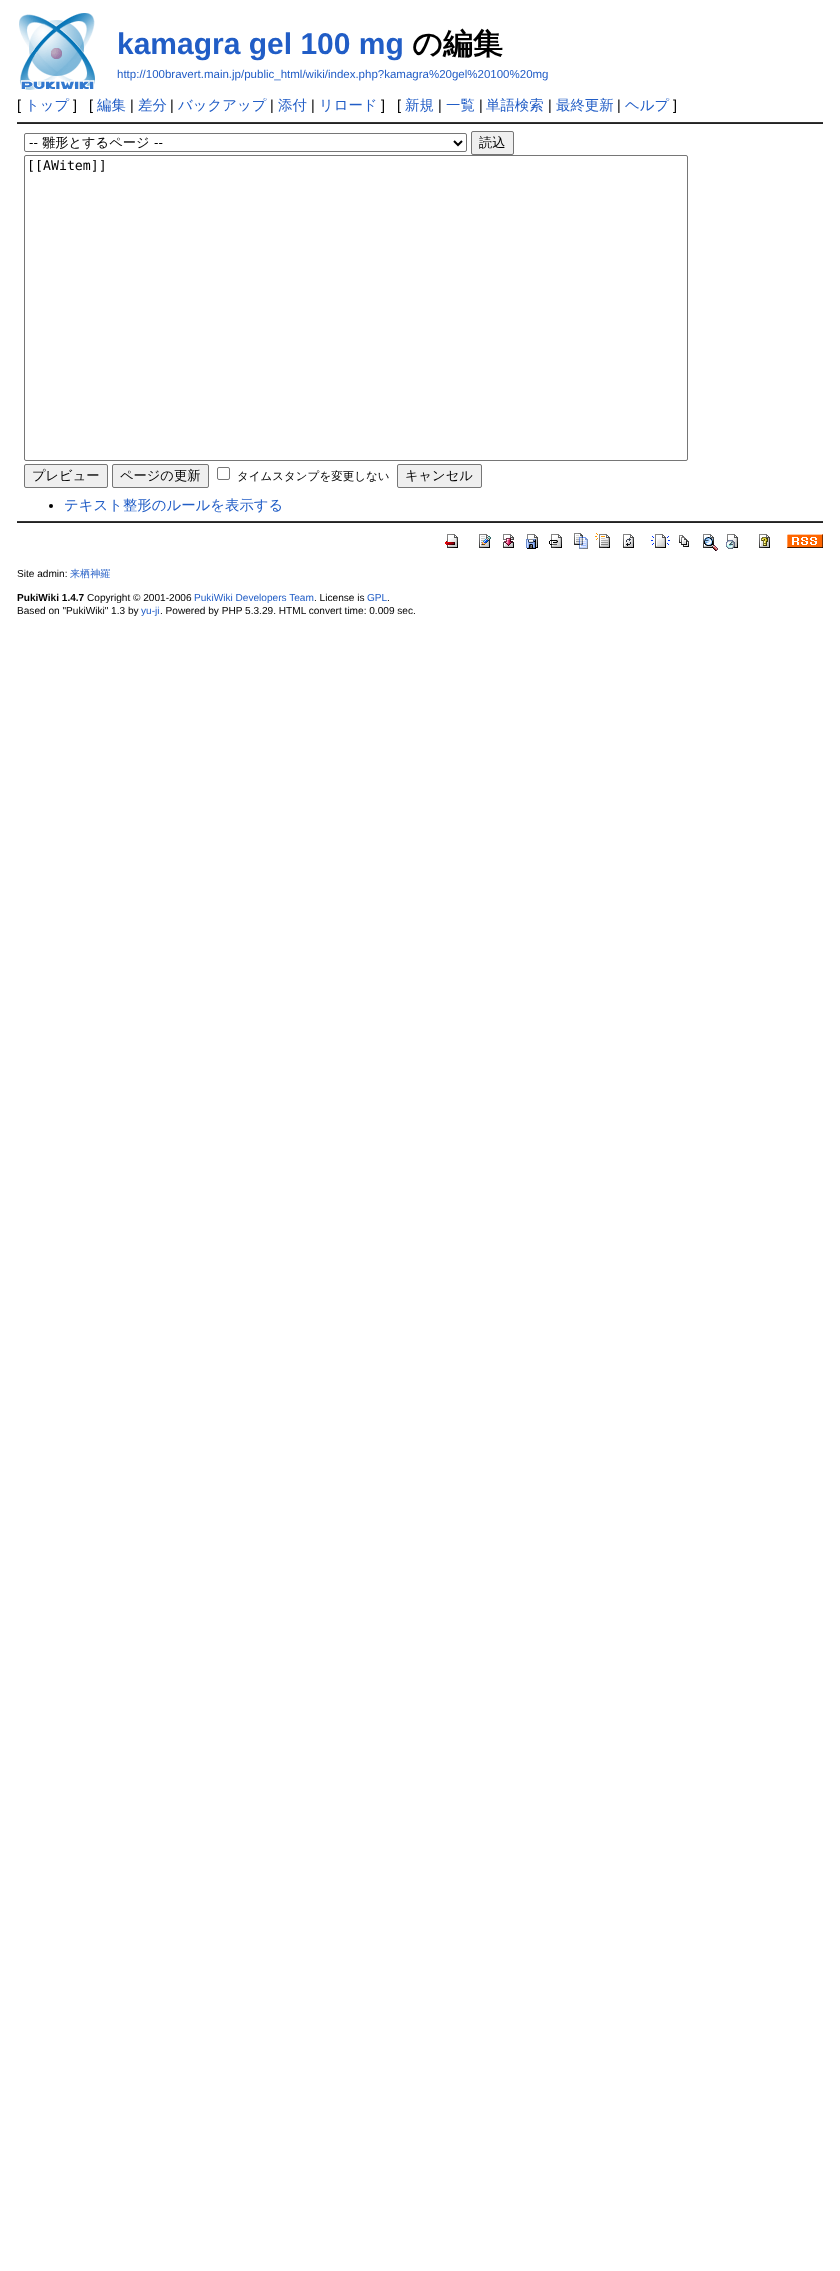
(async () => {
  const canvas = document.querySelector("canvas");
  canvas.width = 840;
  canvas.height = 2271;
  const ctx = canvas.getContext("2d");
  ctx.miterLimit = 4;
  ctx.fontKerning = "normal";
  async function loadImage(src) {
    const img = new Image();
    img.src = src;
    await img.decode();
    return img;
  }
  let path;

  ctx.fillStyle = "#ffffff";
  ctx.fillRect(0, 0, 840, 2271);
  ctx.drawImage(await loadImage("img/1.png"), 19, 13, 76, 77);
  ctx.fillStyle = "#333333";
  ctx.fillRect(17, 122, 806, 1);
  ctx.fillStyle = "#222222";
  ctx.fillRect(17, 123, 806, 1);
  ctx.beginPath();
  ctx.roundRect(24.5, 133.5, 442, 18, 1.5);
  ctx.strokeStyle = "#767676";
  ctx.stroke();
  path = new Path2D("M454 141L458 145L462 141");
  ctx.strokeStyle = "#000000";
  ctx.lineWidth = 2;
  ctx.stroke(path);
  ctx.fillStyle = "#efefef";
  ctx.beginPath();
  ctx.roundRect(471.5, 131.5, 42, 23, 1.5);
  ctx.fill();
  ctx.strokeStyle = "#767676";
  ctx.lineWidth = 1;
  ctx.stroke();
  ctx.beginPath();
  ctx.roundRect(24.5, 155.5, 663, 305, 1.5);
  ctx.stroke();
  ctx.beginPath();
  ctx.roundRect(24.5, 464.5, 83, 23, 1.5);
  ctx.fill();
  ctx.stroke();
  ctx.beginPath();
  ctx.roundRect(112.5, 464.5, 96, 23, 1.5);
  ctx.fill();
  ctx.stroke();
  ctx.beginPath();
  ctx.roundRect(217.5, 467.5, 12, 12, 1.5);
  ctx.stroke();
  ctx.beginPath();
  ctx.roundRect(397.5, 464.5, 84, 23, 1.5);
  ctx.fill();
  ctx.stroke();
  ctx.fillStyle = "#000000";
  ctx.beginPath();
  ctx.arc(51, 506, 2, 0, Math.PI * 2);
  ctx.fill();
  ctx.fillStyle = "#333333";
  ctx.fillRect(17, 521, 806, 1);
  ctx.fillStyle = "#222222";
  ctx.fillRect(17, 522, 806, 1);
  ctx.drawImage(await loadImage("img/2.png"), 445, 534, 13, 14);
  ctx.drawImage(await loadImage("img/3.png"), 479, 534, 12, 14);
  ctx.drawImage(await loadImage("img/4.png"), 503, 534, 11, 14);
  ctx.drawImage(await loadImage("img/5.png"), 526, 534, 12, 15);
  ctx.drawImage(await loadImage("img/6.png"), 549, 534, 13, 14);
  ctx.drawImage(await loadImage("img/7.png"), 574, 533, 14, 16);
  ctx.drawImage(await loadImage("img/8.png"), 595, 533, 15, 15);
  ctx.drawImage(await loadImage("img/9.png"), 623, 534, 11, 14);
  ctx.drawImage(await loadImage("img/10.png"), 651, 534, 19, 14);
  ctx.drawImage(await loadImage("img/11.png"), 679, 535, 10, 12);
  ctx.drawImage(await loadImage("img/12.png"), 703, 534, 15, 17);
  ctx.drawImage(await loadImage("img/13.png"), 726, 534, 12, 15);
  ctx.drawImage(await loadImage("img/14.png"), 759, 534, 11, 14);
  ctx.drawImage(await loadImage("img/15.png"), 787, 534, 36, 14);
  ctx.font = "bold 30px Liberation Sans";
  ctx.fillStyle = "#215dc6";
  ctx.fillText("kamagra gel 100 mg", 117, 54);
  ctx.font = "bold 30px WenQuanYi Zen Hei";
  ctx.fillStyle = "#000000";
  ctx.fillText("の編集", 412, 54);
  ctx.font = "11.5px Liberation Sans";
  ctx.fillStyle = "#215dc6";
  ctx.fillText("http://100bravert.main.jp/public_html/wiki/index.php?kamagra%20gel%20100%20mg", 117, 78);
  ctx.font = "14.4px Liberation Sans";
  ctx.fillStyle = "#000000";
  ctx.fillText("[", 17, 110);
  ctx.font = "500 14.4px WenQuanYi Zen Hei";
  ctx.fillStyle = "#215dc6";
  ctx.fillText("トップ", 25, 110);
  ctx.font = "14.4px Liberation Sans";
  ctx.fillStyle = "#000000";
  ctx.fillText("]", 73, 110);
  ctx.fillText("[", 89, 110);
  ctx.font = "500 14.4px WenQuanYi Zen Hei";
  ctx.fillStyle = "#215dc6";
  ctx.fillText("編集", 97, 110);
  ctx.font = "14.4px Liberation Sans";
  ctx.fillStyle = "#000000";
  ctx.fillText("|", 130, 110);
  ctx.font = "500 14.4px WenQuanYi Zen Hei";
  ctx.fillStyle = "#215dc6";
  ctx.fillText("差分", 138, 110);
  ctx.font = "14.4px Liberation Sans";
  ctx.fillStyle = "#000000";
  ctx.fillText("|", 170, 110);
  ctx.font = "500 14.4px WenQuanYi Zen Hei";
  ctx.fillStyle = "#215dc6";
  ctx.fillText("バックアップ", 178, 110);
  ctx.font = "14.4px Liberation Sans";
  ctx.fillStyle = "#000000";
  ctx.fillText("|", 270, 110);
  ctx.font = "500 14.4px WenQuanYi Zen Hei";
  ctx.fillStyle = "#215dc6";
  ctx.fillText("添付", 278, 110);
  ctx.font = "14.4px Liberation Sans";
  ctx.fillStyle = "#000000";
  ctx.fillText("|", 311, 110);
  ctx.font = "500 14.4px WenQuanYi Zen Hei";
  ctx.fillStyle = "#215dc6";
  ctx.fillText("リロード", 319, 110);
  ctx.font = "14.4px Liberation Sans";
  ctx.fillStyle = "#000000";
  ctx.fillText("]", 381, 110);
  ctx.fillText("[", 397, 110);
  ctx.font = "500 14.4px WenQuanYi Zen Hei";
  ctx.fillStyle = "#215dc6";
  ctx.fillText("新規", 405, 110);
  ctx.font = "14.4px Liberation Sans";
  ctx.fillStyle = "#000000";
  ctx.fillText("|", 438, 110);
  ctx.font = "500 14.4px WenQuanYi Zen Hei";
  ctx.fillStyle = "#215dc6";
  ctx.fillText("一覧", 446, 110);
  ctx.font = "14.4px Liberation Sans";
  ctx.fillStyle = "#000000";
  ctx.fillText("|", 479, 110);
  ctx.font = "500 14.4px WenQuanYi Zen Hei";
  ctx.fillStyle = "#215dc6";
  ctx.fillText("単語検索", 486, 110);
  ctx.font = "14.4px Liberation Sans";
  ctx.fillStyle = "#000000";
  ctx.fillText("|", 548, 110);
  ctx.font = "500 14.4px WenQuanYi Zen Hei";
  ctx.fillStyle = "#215dc6";
  ctx.fillText("最終更新", 556, 110);
  ctx.font = "14.4px Liberation Sans";
  ctx.fillStyle = "#000000";
  ctx.fillText("|", 617, 110);
  ctx.font = "500 14.4px WenQuanYi Zen Hei";
  ctx.fillStyle = "#215dc6";
  ctx.fillText("ヘルプ", 625, 110);
  ctx.font = "14.4px Liberation Sans";
  ctx.fillStyle = "#000000";
  ctx.fillText("]", 673, 110);
  ctx.font = "13.25px Liberation Sans";
  ctx.fillText("--", 29, 147);
  ctx.font = "500 13.25px WenQuanYi Zen Hei";
  ctx.fillText("雛形とするページ", 42, 147);
  ctx.font = "13.25px Liberation Sans";
  ctx.fillText("--", 154, 147);
  ctx.font = "500 13.25px WenQuanYi Zen Hei";
  ctx.fillText("読込", 479, 147);
  ctx.font = "13.25px DejaVu Sans Mono";
  ctx.fillText("[[AWitem]]", 27, 170);
  ctx.font = "500 13.25px WenQuanYi Zen Hei";
  ctx.fillText("プレビュー", 32, 480);
  ctx.fillText("ページの更新", 120, 480);
  ctx.font = "500 11.5px WenQuanYi Zen Hei";
  ctx.fillText("タイムスタンプを変更しない", 237, 480);
  ctx.font = "500 13.25px WenQuanYi Zen Hei";
  ctx.fillText("キャンセル", 405, 480);
  ctx.font = "500 14.4px WenQuanYi Zen Hei";
  ctx.fillStyle = "#215dc6";
  ctx.fillText("テキスト整形のルールを表示する", 64, 510);
  ctx.font = "10.1px Liberation Sans";
  ctx.fillStyle = "#000000";
  ctx.fillText("Site admin:", 17, 577);
  ctx.font = "500 10.1px WenQuanYi Zen Hei";
  ctx.fillStyle = "#215dc6";
  ctx.fillText("来栖神羅", 70, 577);
  ctx.font = "bold 10.1px Liberation Sans";
  ctx.fillStyle = "#000000";
  ctx.fillText("PukiWiki 1.4.7", 17, 601);
  ctx.font = "10.1px Liberation Sans";
  ctx.fillText("Copyright © 2001-2006", 87, 601);
  ctx.fillStyle = "#215dc6";
  ctx.fillText("PukiWiki Developers Team", 194, 601);
  ctx.fillStyle = "#000000";
  ctx.fillText(". License is", 314, 601);
  ctx.fillStyle = "#215dc6";
  ctx.fillText("GPL", 367, 601);
  ctx.fillStyle = "#000000";
  ctx.fillText(".", 387, 601);
  ctx.fillText("Based on \"PukiWiki\" 1.3 by", 17, 614);
  ctx.fillStyle = "#215dc6";
  ctx.fillText("yu-ji", 141, 614);
  ctx.fillStyle = "#000000";
  ctx.fillText(". Powered by PHP 5.3.29. HTML convert time: 0.009 sec.", 160, 614);
})();
